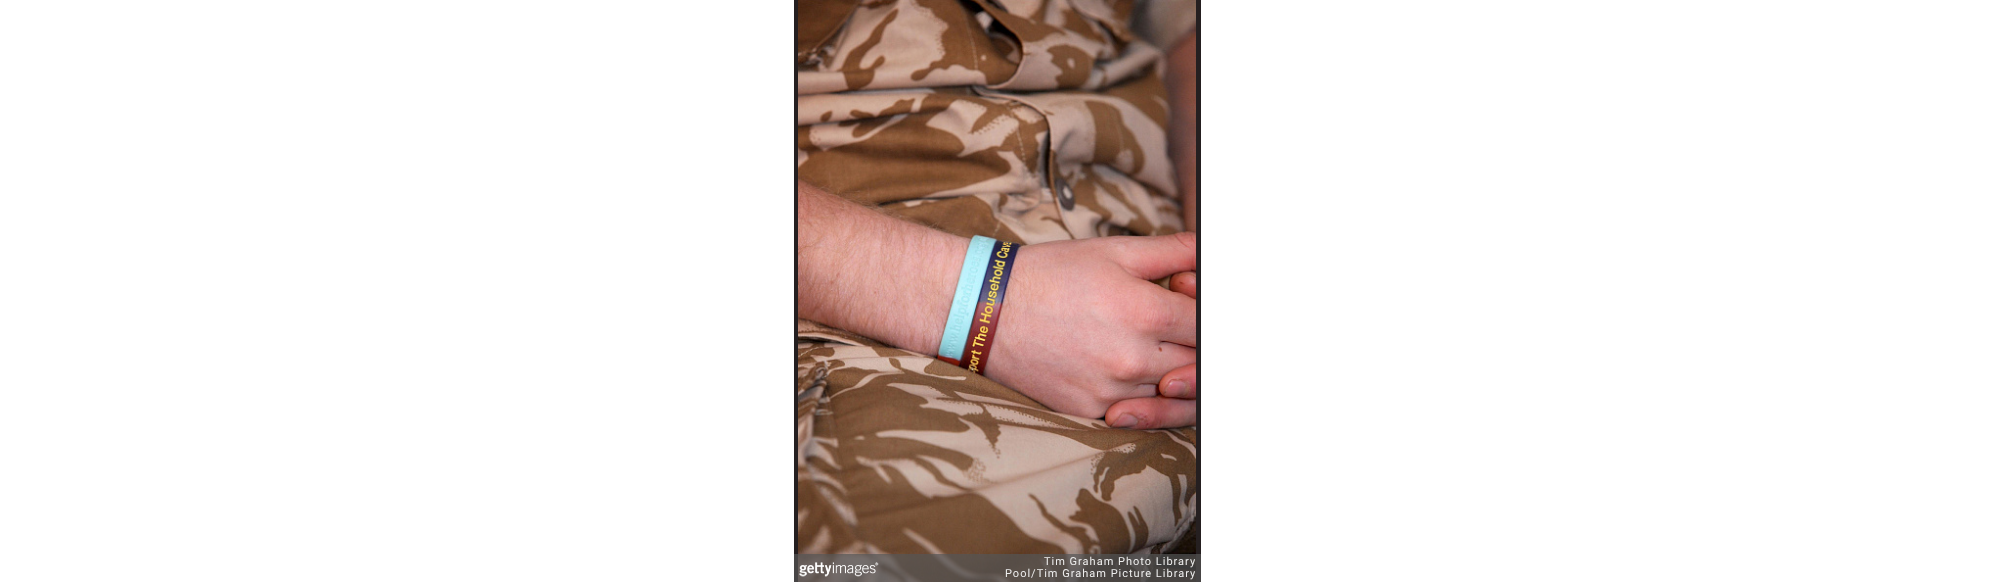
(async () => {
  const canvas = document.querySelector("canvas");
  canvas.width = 1994;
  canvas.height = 582;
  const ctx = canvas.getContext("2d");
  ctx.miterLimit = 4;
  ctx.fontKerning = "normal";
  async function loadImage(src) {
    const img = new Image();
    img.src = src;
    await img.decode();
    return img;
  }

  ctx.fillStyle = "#ffffff";
  ctx.fillRect(0, 0, 1994, 582);
  ctx.fillStyle = "#251f20";
  ctx.fillRect(794, 0, 407, 582);
  ctx.drawImage(await loadImage("img/1.png"), 798, 0, 398, 582);
  ctx.fillStyle = "rgba(85, 85, 85, 0.7)";
  ctx.fillRect(794, 554, 407, 28);
  ctx.drawImage(await loadImage("img/2.png"), 799, 562, 80, 15);
  ctx.letterSpacing = "1px";
  ctx.font = "11px Roboto";
  ctx.fillStyle = "#eeeeee";
  ctx.fillText("Tim Graham Photo Library", 1044, 565);
  ctx.fillText("Pool/Tim Graham Picture Library", 1005, 577);
})();
